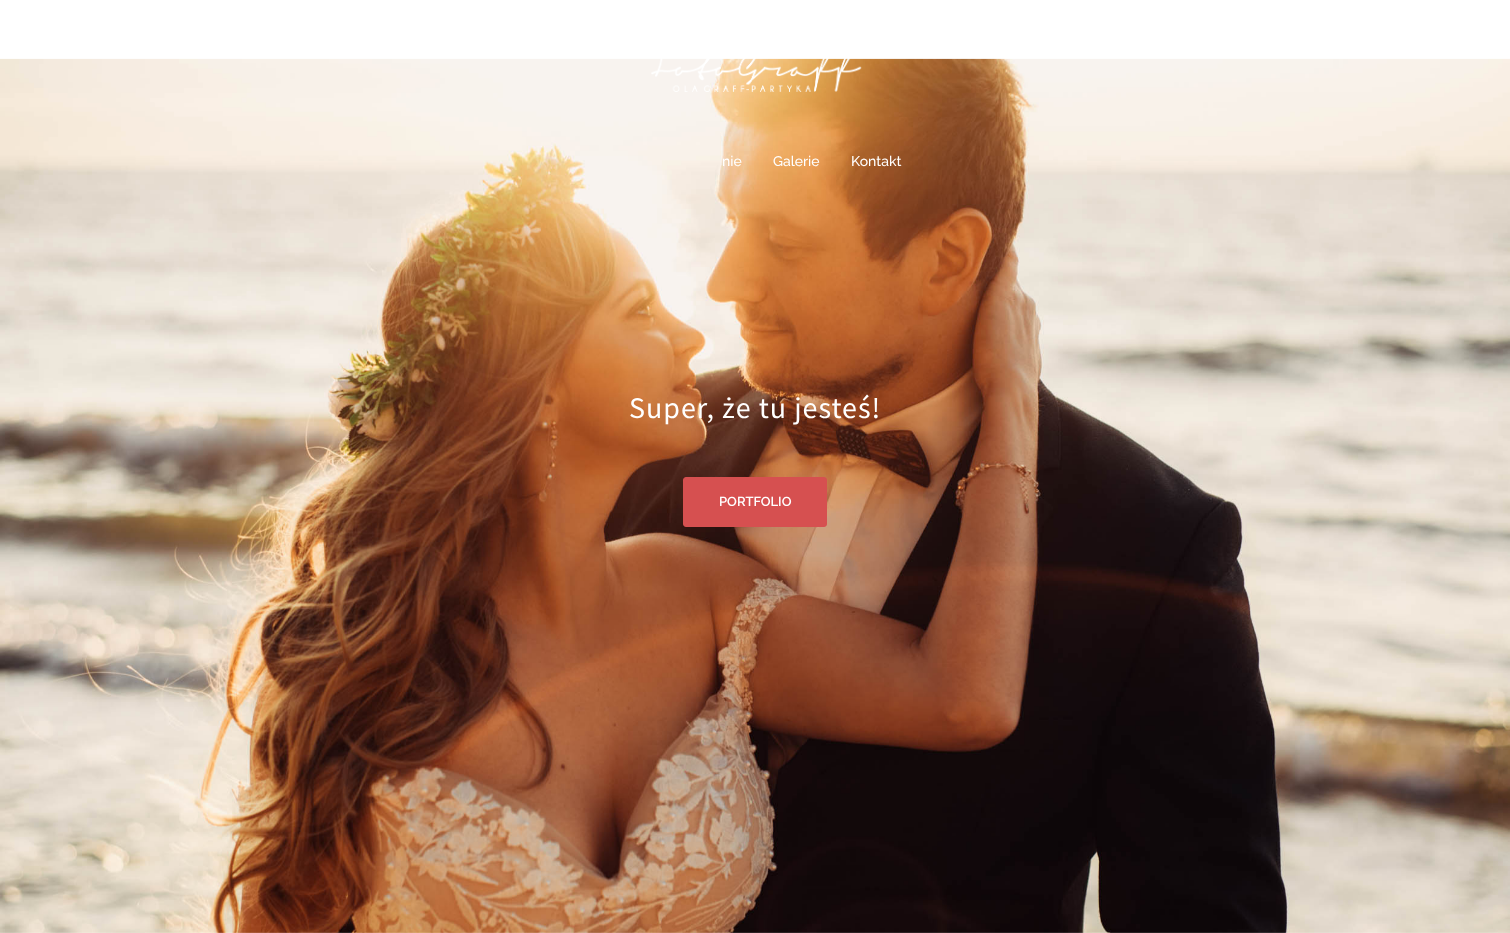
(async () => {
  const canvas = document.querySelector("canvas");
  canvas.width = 1510;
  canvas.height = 933;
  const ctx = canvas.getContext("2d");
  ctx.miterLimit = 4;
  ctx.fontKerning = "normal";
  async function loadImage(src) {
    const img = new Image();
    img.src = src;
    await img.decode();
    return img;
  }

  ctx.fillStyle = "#ffffff";
  ctx.fillRect(0, 0, 1510, 933);
  ctx.drawImage(await loadImage("img/2.png"), 0, 58, 1510, 875);
  ctx.drawImage(await loadImage("img/1.png"), 651, 58, 211, 34);
  ctx.fillStyle = "#d65050";
  ctx.beginPath();
  ctx.roundRect(683.5, 477.5, 143, 49, 2.5);
  ctx.fill();
  ctx.strokeStyle = "#d65050";
  ctx.stroke();
  ctx.font = "500 14px Raleway";
  ctx.fillStyle = "#ffffff";
  for (const [text, x, y] of [
    ["nie", 722, 166],
    ["Galerie", 773, 166],
    ["Kontakt", 851, 166],
  ]) {
    ctx.fillText(text, x, y);
  }
  ctx.letterSpacing = "1px";
  ctx.font = "30px Source Sans Pro";
  ctx.fillText("Super, że tu jesteś!", 629, 418);
  ctx.letterSpacing = "0px";
  ctx.font = "600 13px Raleway";
  ctx.fillText("PORTFOLIO", 719, 506);
})();
